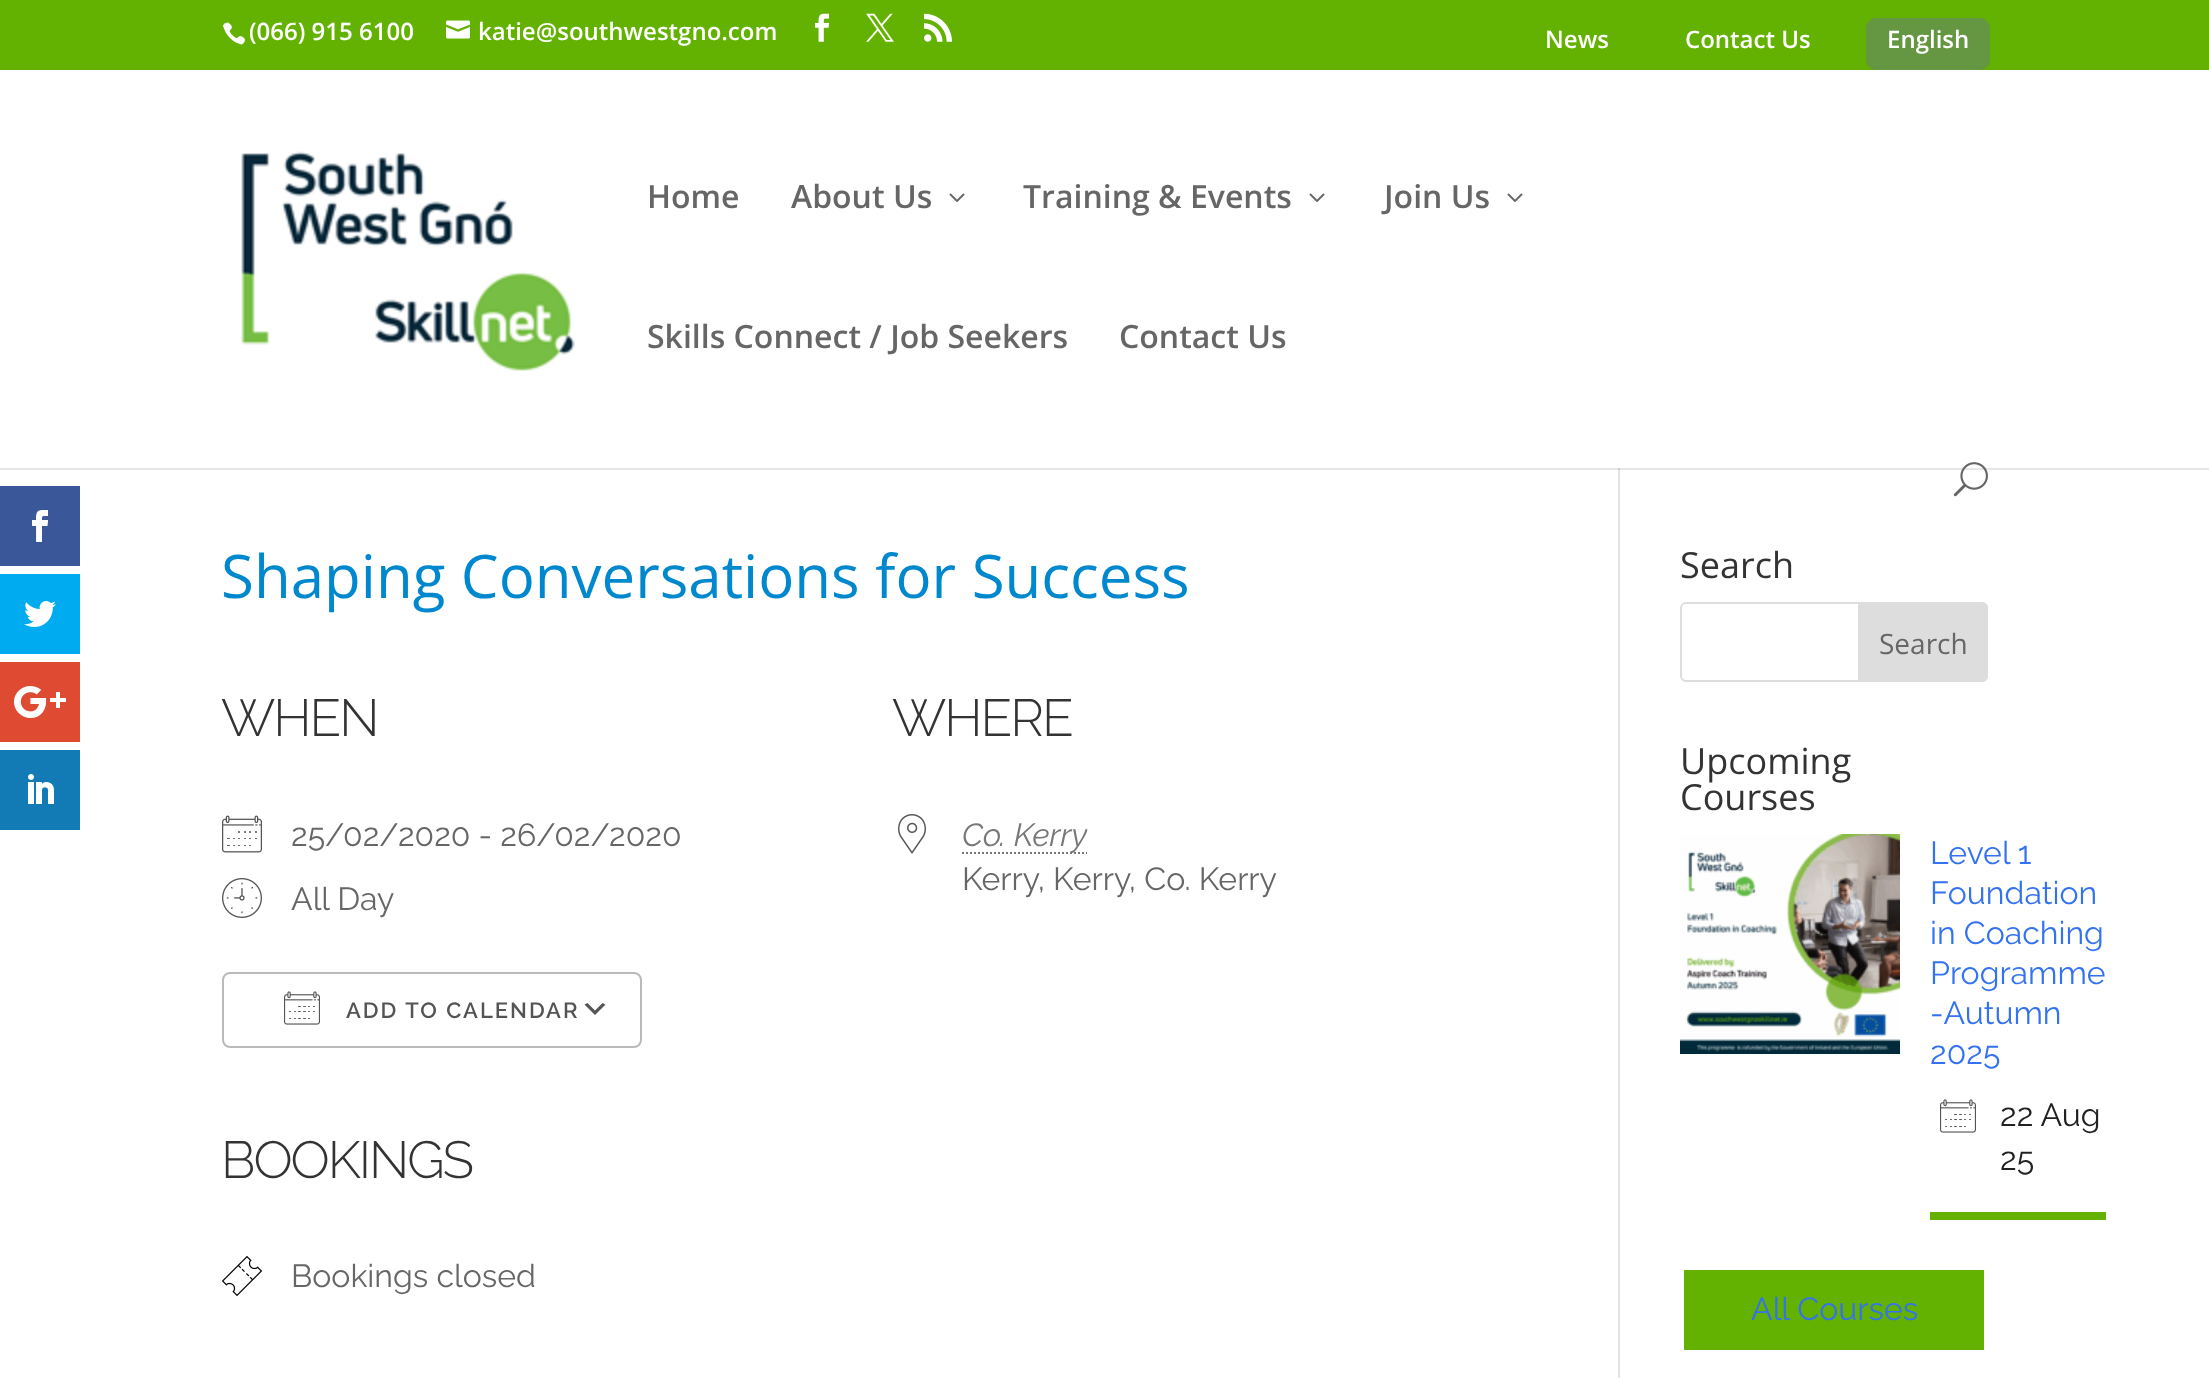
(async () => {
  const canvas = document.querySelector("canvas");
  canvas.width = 2209;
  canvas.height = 1378;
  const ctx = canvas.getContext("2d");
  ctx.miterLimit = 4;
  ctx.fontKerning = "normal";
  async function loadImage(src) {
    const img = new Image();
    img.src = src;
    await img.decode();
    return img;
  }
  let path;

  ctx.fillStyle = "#ffffff";
  ctx.fillRect(0, 0, 2209, 1378);
  ctx.fillStyle = "#e6e6e6";
  ctx.fillRect(0, 468, 2209, 2);
  ctx.fillStyle = "#3a579a";
  ctx.fillRect(0, 486, 80, 80);
  ctx.drawImage(await loadImage("img/1.png"), 32, 510, 17, 32);
  ctx.fillStyle = "#00abf0";
  ctx.fillRect(0, 574, 80, 80);
  ctx.drawImage(await loadImage("img/2.png"), 24, 601, 32, 26);
  ctx.fillStyle = "#df4a32";
  ctx.fillRect(0, 662, 80, 80);
  ctx.drawImage(await loadImage("img/3.png"), 14, 686, 52, 32);
  ctx.fillStyle = "#127bb6";
  ctx.fillRect(0, 750, 80, 80);
  ctx.drawImage(await loadImage("img/4.png"), 28, 774, 26, 30);
  ctx.fillStyle = "#63b201";
  ctx.fillRect(0, 0, 2209, 70);
  ctx.drawImage(await loadImage("img/5.png"), 223, 22, 22, 23);
  ctx.drawImage(await loadImage("img/6.png"), 446, 20, 24, 19);
  ctx.drawImage(await loadImage("img/7.png"), 815, 13, 15, 29);
  ctx.drawImage(await loadImage("img/8.png"), 866, 13, 28, 29);
  ctx.drawImage(await loadImage("img/9.png"), 924, 13, 28, 29);
  ctx.fillStyle = "#659641";
  ctx.beginPath();
  ctx.roundRect(1866, 18, 124, 52, 10);
  ctx.fill();
  ctx.drawImage(await loadImage("img/10.png"), 241, 151, 334, 220);
  ctx.drawImage(await loadImage("img/11.png"), 949, 193, 16, 9);
  ctx.drawImage(await loadImage("img/11.png"), 1309, 193, 16, 9);
  ctx.drawImage(await loadImage("img/11.png"), 1507, 193, 16, 9);
  ctx.drawImage(await loadImage("img/12.png"), 1953, 462, 35, 35);
  ctx.fillStyle = "#e2e2e2";
  ctx.fillRect(1618, 470, 2, 908);
  ctx.fillStyle = "#cbcbcb";
  ctx.fillRect(1618, 468, 2, 2);
  ctx.drawImage(await loadImage("img/13.png"), 222, 815, 40, 38);
  ctx.drawImage(await loadImage("img/14.png"), 222, 878, 40, 40);
  ctx.fillStyle = "#555555";
  path = new Path2D("M587.5 1003L595 1010.5L602.5 1003L605.5 1004.5L595 1015L584.5 1004.5Z");
  ctx.fill(path);
  ctx.beginPath();
  ctx.roundRect(223, 973, 418, 74, 7);
  ctx.strokeStyle = "#bababa";
  ctx.lineWidth = 2;
  ctx.stroke();
  ctx.drawImage(await loadImage("img/15.png"), 284, 991, 36, 34);
  ctx.drawImage(await loadImage("img/16.png"), 222, 1256, 40, 40);
  ctx.drawImage(await loadImage("img/17.png"), 898, 814, 28, 40);
  path = new Path2D("M962 853H1087");
  ctx.strokeStyle = "#787878";
  ctx.setLineDash([2, 2]);
  ctx.stroke(path);
  ctx.beginPath();
  ctx.roundRect(1681, 603, 306, 78, 5);
  ctx.strokeStyle = "#dddddd";
  ctx.setLineDash([]);
  ctx.stroke();
  ctx.fillStyle = "#dddddd";
  ctx.beginPath();
  ctx.roundRect(1859, 603, 128, 78, [0, 5, 5, 0]);
  ctx.fill();
  ctx.stroke();
  ctx.drawImage(await loadImage("img/18.png"), 1680, 834, 220, 220);
  ctx.fillStyle = "#63b201";
  ctx.fillRect(1930, 1212, 176, 8);
  ctx.drawImage(await loadImage("img/15.png"), 1940, 1099, 36, 34);
  ctx.fillRect(1684, 1270, 300, 80);
  ctx.font = "600 24px Open Sans";
  ctx.fillStyle = "#ffffff";
  for (const [text, x, y] of [
    ["(066) 915 6100", 249, 40],
    ["katie@southwestgno.com", 478, 40],
    ["News", 1545, 48],
    ["Contact Us", 1685, 48],
    ["English", 1887, 48],
  ]) {
    ctx.fillText(text, x, y);
  }
  ctx.font = "600 32px Open Sans";
  ctx.fillStyle = "#666666";
  for (const [text, x, y] of [
    ["Home", 647, 208],
    ["About Us", 791, 208],
    ["Training & Events", 1023, 208],
    ["Join Us", 1384, 208],
    ["Skills Connect / Job Seekers", 647, 348],
    ["Contact Us", 1119, 348],
  ]) {
    ctx.fillText(text, x, y);
  }
  ctx.font = "60px Open Sans";
  ctx.fillStyle = "#0088ce";
  ctx.fillText("Shaping Conversations for Success", 221, 598);
  ctx.letterSpacing = "-2px";
  ctx.font = "300 52px Raleway";
  ctx.fillStyle = "#333333";
  ctx.fillText("WHEN", 221, 736);
  ctx.letterSpacing = "0px";
  ctx.font = "32px Raleway";
  ctx.fillStyle = "#666666";
  ctx.fillText("25/02/2020 - 26/02/2020", 291, 846);
  ctx.fillText("All Day", 291, 910);
  ctx.letterSpacing = "2px";
  ctx.font = "600 22px Raleway";
  ctx.fillStyle = "#545454";
  ctx.fillText("ADD TO CALENDAR", 346, 1018);
  ctx.letterSpacing = "-2px";
  ctx.font = "300 52px Raleway";
  ctx.fillStyle = "#333333";
  ctx.fillText("BOOKINGS", 221, 1178);
  ctx.letterSpacing = "0px";
  ctx.font = "32px Raleway";
  ctx.fillStyle = "#666666";
  ctx.fillText("Bookings closed", 291, 1287);
  ctx.letterSpacing = "-2px";
  ctx.font = "300 52px Raleway";
  ctx.fillStyle = "#333333";
  ctx.fillText("WHERE", 892, 736);
  ctx.letterSpacing = "0px";
  ctx.font = "italic 32px Raleway";
  ctx.fillStyle = "#787878";
  ctx.fillText("Co. Kerry", 962, 846);
  ctx.font = "32px Raleway";
  ctx.fillStyle = "#666666";
  ctx.fillText("Kerry, Kerry, Co. Kerry", 962, 890);
  ctx.font = "36px Open Sans";
  ctx.fillStyle = "#333333";
  ctx.fillText("Search", 1680, 578);
  ctx.font = "28px Open Sans";
  ctx.fillStyle = "#666666";
  ctx.fillText("Search", 1879, 654);
  ctx.font = "36px Open Sans";
  ctx.fillStyle = "#333333";
  ctx.fillText("Upcoming", 1680, 774);
  ctx.fillText("Courses", 1680, 810);
  ctx.font = "32px Raleway";
  ctx.fillStyle = "#3372f0";
  for (const [text, x, y] of [
    ["Level 1", 1930, 864],
    ["Foundation", 1930, 904],
    ["in Coaching", 1930, 944],
    ["Programme", 1930, 984],
    ["-Autumn", 1930, 1024],
    ["2025", 1930, 1064],
  ]) {
    ctx.fillText(text, x, y);
  }
  ctx.fillStyle = "#212121";
  ctx.fillText("22 Aug", 2000, 1126);
  ctx.fillText("25", 2000, 1170);
  ctx.fillStyle = "#3372f0";
  ctx.fillText("All Courses", 1751, 1320);
})();
